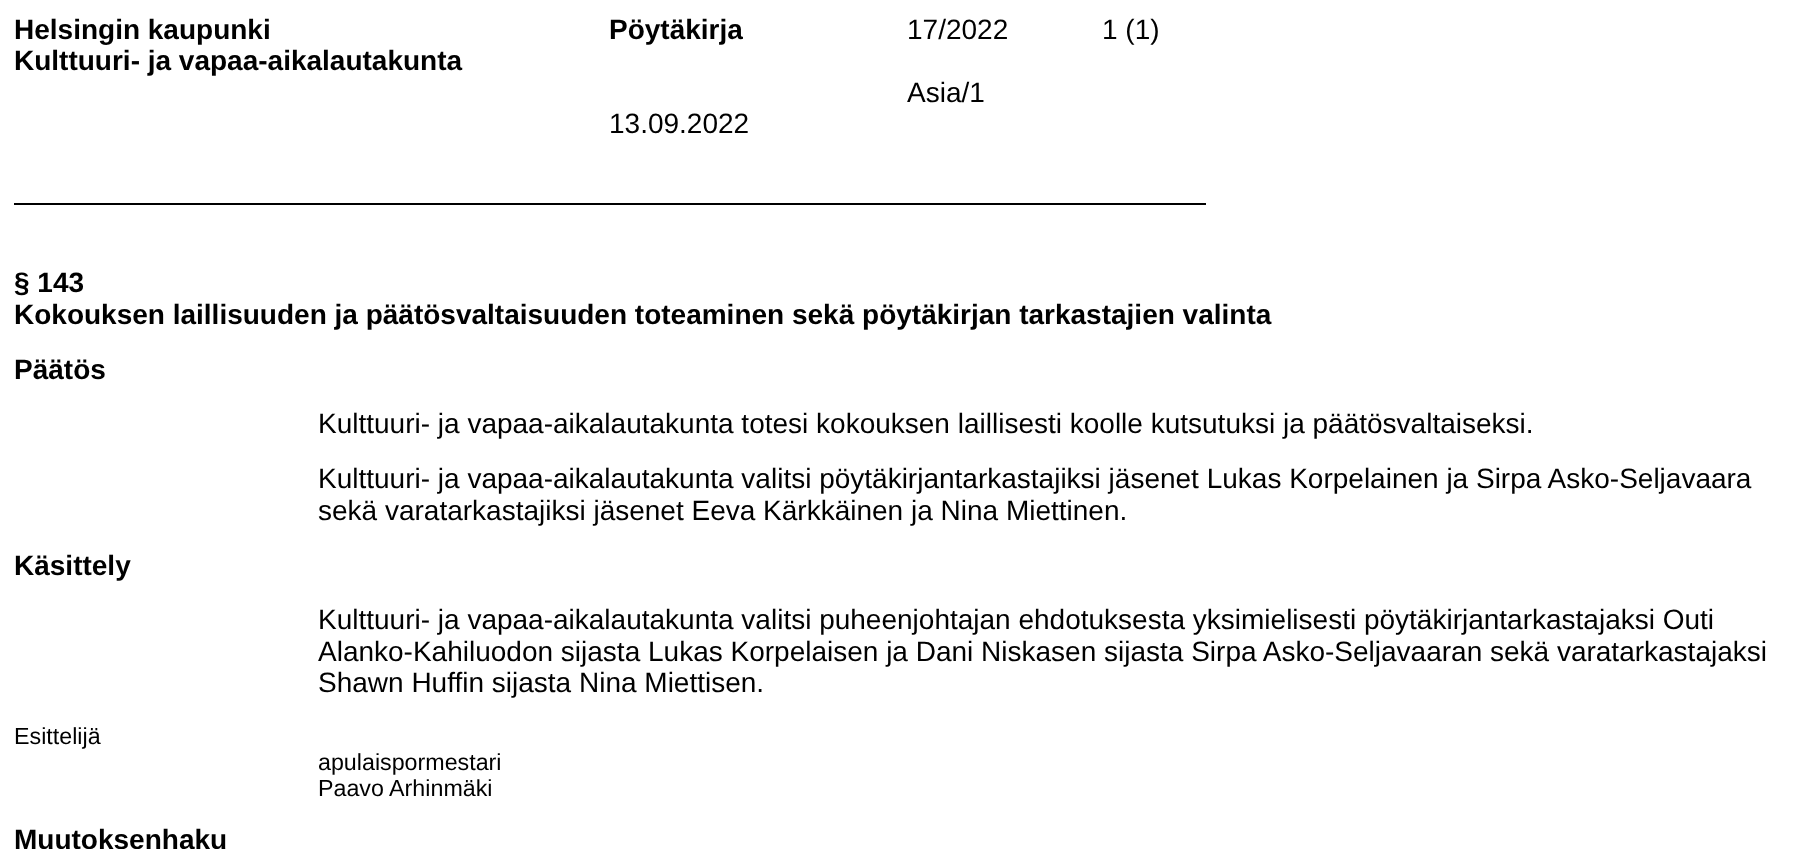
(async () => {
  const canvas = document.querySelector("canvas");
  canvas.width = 1800;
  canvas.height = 849;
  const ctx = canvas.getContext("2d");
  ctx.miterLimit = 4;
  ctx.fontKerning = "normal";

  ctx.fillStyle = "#ffffff";
  ctx.fillRect(0, 0, 1800, 849);
  ctx.fillStyle = "#000000";
  ctx.fillRect(14, 203, 1192, 2);
  ctx.font = "bold 28px Liberation Sans";
  ctx.fillText("Helsingin kaupunki", 14, 39);
  ctx.fillText("Pöytäkirja", 609, 39);
  ctx.font = "28px Liberation Sans";
  ctx.fillText("17/2022", 907, 39);
  ctx.fillText("1 (1)", 1102, 39);
  ctx.font = "bold 28px Liberation Sans";
  ctx.fillText("Kulttuuri- ja vapaa-aikalautakunta", 14, 70);
  ctx.font = "28px Liberation Sans";
  ctx.fillText("Asia/1", 907, 102);
  ctx.fillText("13.09.2022", 609, 133);
  ctx.font = "bold 28px Liberation Sans";
  for (const [text, x, y] of [
    ["§ 143", 14, 292],
    ["Kokouksen laillisuuden ja päätösvaltaisuuden toteaminen sekä pöytäkirjan tarkastajien valinta", 14, 324],
    ["Päätös", 14, 379],
  ]) {
    ctx.fillText(text, x, y);
  }
  ctx.font = "28px Liberation Sans";
  for (const [text, x, y] of [
    ["Kulttuuri- ja vapaa-aikalautakunta totesi kokouksen laillisesti koolle kutsutuksi ja päätösvaltaiseksi.", 318, 433],
    ["Kulttuuri- ja vapaa-aikalautakunta valitsi pöytäkirjantarkastajiksi jäsenet Lukas Korpelainen ja Sirpa Asko-Seljavaara", 318, 488],
    ["sekä varatarkastajiksi jäsenet Eeva Kärkkäinen ja Nina Miettinen.", 318, 520],
  ]) {
    ctx.fillText(text, x, y);
  }
  ctx.font = "bold 28px Liberation Sans";
  ctx.fillText("Käsittely", 14, 575);
  ctx.font = "28px Liberation Sans";
  for (const [text, x, y] of [
    ["Kulttuuri- ja vapaa-aikalautakunta valitsi puheenjohtajan ehdotuksesta yksimielisesti pöytäkirjantarkastajaksi Outi", 318, 629],
    ["Alanko-Kahiluodon sijasta Lukas Korpelaisen ja Dani Niskasen sijasta Sirpa Asko-Seljavaaran sekä varatarkastajaksi", 318, 661],
    ["Shawn Huffin sijasta Nina Miettisen.", 318, 692],
  ]) {
    ctx.fillText(text, x, y);
  }
  ctx.font = "23.25px Liberation Sans";
  for (const [text, x, y] of [
    ["Esittelijä", 14, 744],
    ["apulaispormestari", 318, 770],
    ["Paavo Arhinmäki", 318, 796],
  ]) {
    ctx.fillText(text, x, y);
  }
  ctx.font = "bold 28px Liberation Sans";
  ctx.fillText("Muutoksenhaku", 14, 849);
})();
